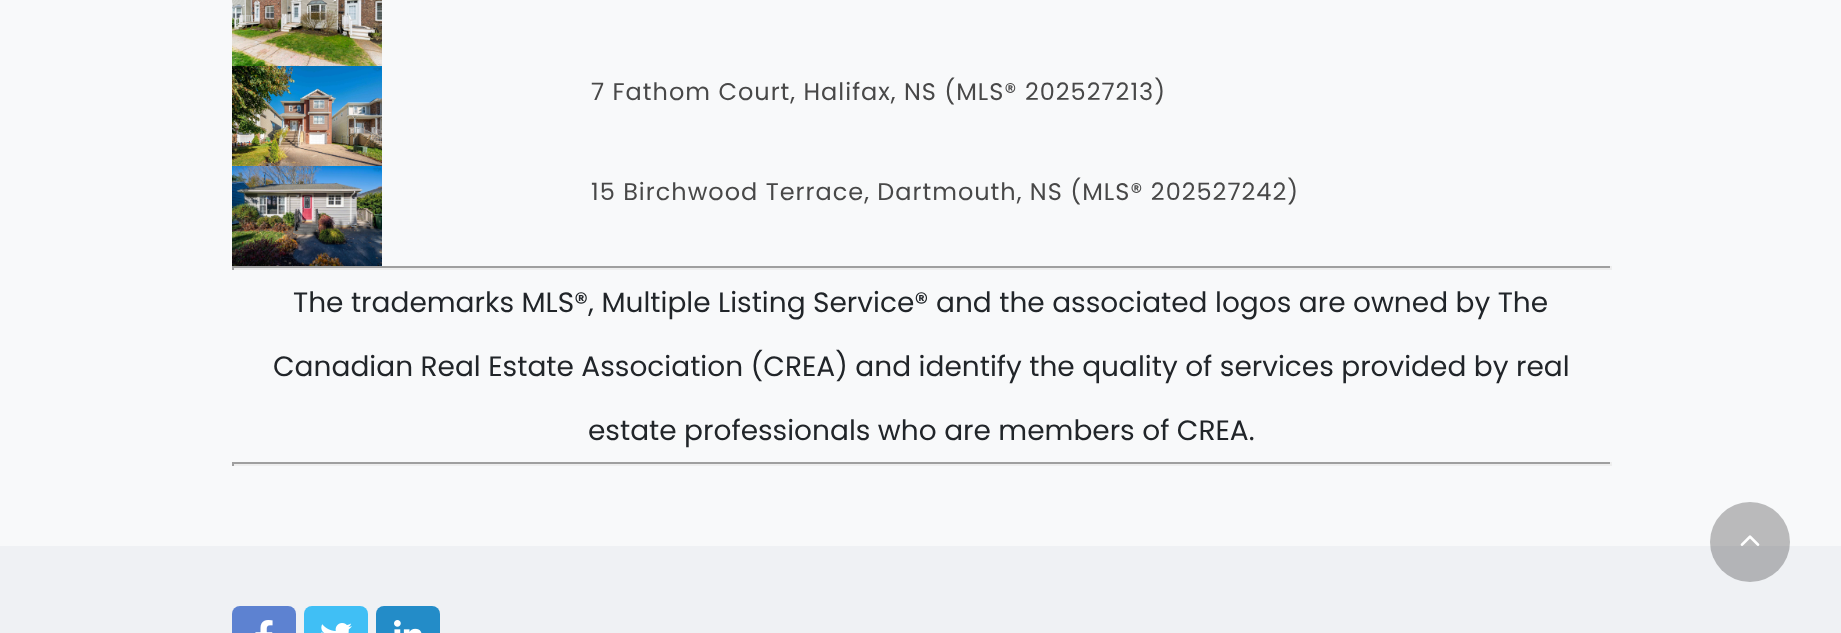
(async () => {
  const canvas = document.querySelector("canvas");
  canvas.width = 1841;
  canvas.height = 633;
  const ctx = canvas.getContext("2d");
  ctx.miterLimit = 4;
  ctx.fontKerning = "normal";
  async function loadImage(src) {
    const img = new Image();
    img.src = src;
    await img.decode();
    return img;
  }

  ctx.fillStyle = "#f8f9fa";
  ctx.fillRect(0, 0, 1841, 633);
  ctx.drawImage(await loadImage("img/1.png"), 232, 0, 150, 66);
  ctx.drawImage(await loadImage("img/2.png"), 232, 66, 150, 100);
  ctx.drawImage(await loadImage("img/3.png"), 232, 166, 150, 100);
  for (const [x, y, w, h, color] of [
    [232, 266, 1380, 2, "#9f9f9f"],
    [1610, 266, 2, 4, "#eeeeee"],
    [232, 268, 1380, 2, "#eeeeee"],
    [232, 266, 2, 4, "#9f9f9f"],
    [232, 462, 1380, 2, "#9f9f9f"],
    [1610, 462, 2, 4, "#eeeeee"],
    [232, 464, 1380, 2, "#eeeeee"],
    [232, 462, 2, 4, "#9f9f9f"],
    [0, 546, 1841, 87, "#eff1f4"],
  ]) {
    ctx.fillStyle = color;
    ctx.fillRect(x, y, w, h);
  }
  ctx.fillStyle = "#5d82d1";
  ctx.beginPath();
  ctx.roundRect(232, 606, 64, 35, 8);
  ctx.fill();
  ctx.drawImage(await loadImage("img/4.png"), 255, 620, 18, 13);
  ctx.fillStyle = "#40bff5";
  ctx.beginPath();
  ctx.roundRect(304, 606, 64, 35, 8);
  ctx.fill();
  ctx.drawImage(await loadImage("img/5.png"), 321, 623, 31, 10);
  ctx.fillStyle = "#238cc8";
  ctx.beginPath();
  ctx.roundRect(376, 606, 64, 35, 8);
  ctx.fill();
  ctx.drawImage(await loadImage("img/6.png"), 394, 620, 28, 13);
  ctx.fillStyle = "rgba(0, 0, 0, 0.25)";
  ctx.beginPath();
  ctx.arc(1750, 542, 40, 0, Math.PI * 2);
  ctx.fill();
  ctx.drawImage(await loadImage("img/7.png"), 1740, 535, 20, 11);
  ctx.letterSpacing = "1px";
  ctx.font = "24px Poppins";
  ctx.fillStyle = "#484848";
  ctx.fillText("7 Fathom Court, Halifax, NS (MLS® 202527213)", 591, 100);
  ctx.fillText("15 Birchwood Terrace, Dartmouth, NS (MLS® 202527242)", 591, 200);
  ctx.letterSpacing = "0px";
  ctx.font = "28px Poppins";
  ctx.fillStyle = "#212529";
  for (const [text, x, y] of [
    ["The trademarks MLS®, Multiple Listing Service® and the associated logos are owned by The", 293, 312],
    ["Canadian Real Estate Association (CREA) and identify the quality of services provided by real", 273, 376],
    ["estate professionals who are members of CREA.", 588, 440],
  ]) {
    ctx.fillText(text, x, y);
  }
})();
